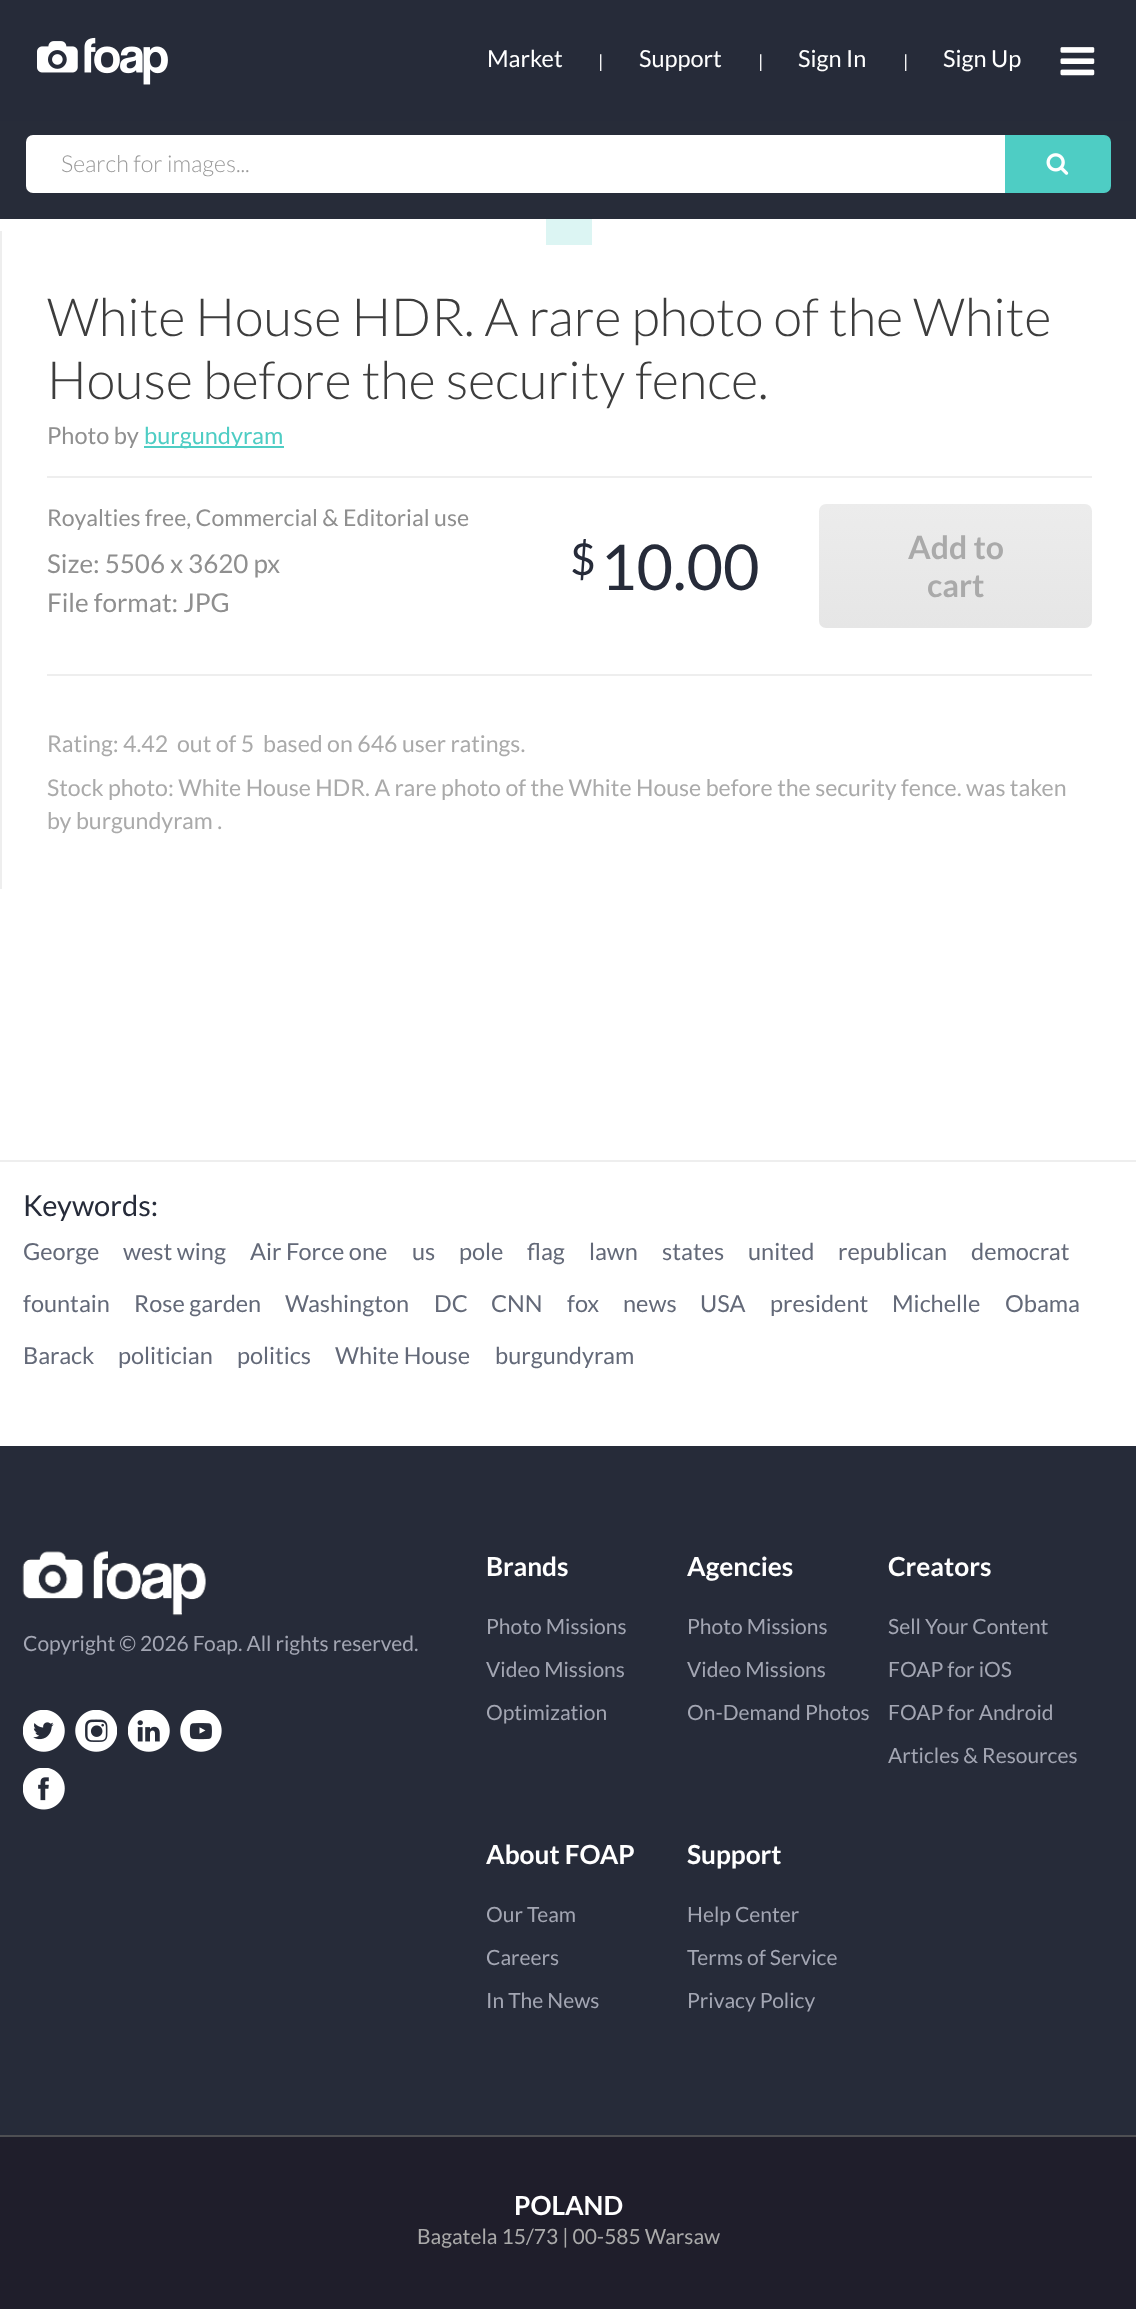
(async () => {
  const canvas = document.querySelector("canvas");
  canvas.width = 1136;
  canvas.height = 2309;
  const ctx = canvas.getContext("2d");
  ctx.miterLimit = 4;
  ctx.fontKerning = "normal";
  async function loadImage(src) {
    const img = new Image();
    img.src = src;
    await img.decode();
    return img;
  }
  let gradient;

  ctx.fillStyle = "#1f1e2b";
  ctx.fillRect(0, 0, 1136, 2309);
  ctx.fillStyle = "#ffffff";
  ctx.fillRect(0, 219, 1136, 1227);
  ctx.fillStyle = "#262b39";
  ctx.fillRect(0, 0, 1136, 121);
  ctx.drawImage(await loadImage("img/1.png"), 37, 37, 131, 48);
  ctx.drawImage(await loadImage("img/2.png"), 1060, 47, 35, 29);
  ctx.fillStyle = "#272c39";
  ctx.fillRect(0, 121, 1136, 98);
  ctx.fillStyle = "#ffffff";
  ctx.beginPath();
  ctx.roundRect(26, 135, 979, 58, [7, 0, 0, 7]);
  ctx.fill();
  ctx.fillStyle = "#4ecdc4";
  ctx.beginPath();
  ctx.roundRect(1005, 135, 106, 58, [0, 7, 7, 0]);
  ctx.fill();
  ctx.drawImage(await loadImage("img/3.png"), 1046, 153, 23, 22);
  for (const [x, y, w, h, color] of [
    [0, 1160, 1136, 2, "#eeeeee"],
    [546, 219, 46, 26, "#dcf5f3"],
    [0, 231, 2, 658, "#eeeeee"],
    [47, 476, 1045, 2, "#eeeeee"],
    [144, 446, 140, 2, "#4ecdc4"],
  ]) {
    ctx.fillStyle = color;
    ctx.fillRect(x, y, w, h);
  }
  gradient = ctx.createLinearGradient(956, 628, 956, 504);
  gradient.addColorStop(0, "#e6e6e6");
  gradient.addColorStop(1, "#ececec");
  ctx.fillStyle = gradient;
  ctx.beginPath();
  ctx.roundRect(819, 504, 273, 124, 7);
  ctx.fill();
  ctx.fillStyle = "#eeeeee";
  ctx.fillRect(47, 674, 1045, 2);
  ctx.fillStyle = "#262b39";
  ctx.fillRect(0, 1446, 1136, 689);
  ctx.drawImage(await loadImage("img/4.png"), 22, 1551, 184, 65);
  ctx.drawImage(await loadImage("img/5.png"), 23, 1710, 42, 42);
  ctx.drawImage(await loadImage("img/6.png"), 75, 1710, 42, 42);
  ctx.drawImage(await loadImage("img/7.png"), 128, 1710, 42, 42);
  ctx.drawImage(await loadImage("img/8.png"), 180, 1710, 42, 42);
  ctx.drawImage(await loadImage("img/9.png"), 23, 1768, 42, 42);
  ctx.fillStyle = "#4e4f53";
  ctx.fillRect(0, 2135, 1136, 2);
  ctx.font = "23.5px Lato";
  ctx.fillStyle = "#ffffff";
  ctx.fillText("Market", 487, 67);
  ctx.font = "18px Lato";
  ctx.fillText("|", 598, 68);
  ctx.font = "23.5px Lato";
  ctx.fillText("Support", 639, 67);
  ctx.font = "18px Lato";
  ctx.fillText("|", 758, 68);
  ctx.font = "23.5px Lato";
  ctx.fillText("Sign In", 798, 67);
  ctx.font = "18px Lato";
  ctx.fillText("|", 903, 68);
  ctx.font = "23.5px Lato";
  ctx.fillText("Sign Up", 943, 67);
  ctx.font = "300 23.25px Lato";
  ctx.fillStyle = "#999999";
  ctx.fillText("Search for images...", 61, 172);
  ctx.font = "300 52.5px Lato";
  ctx.fillStyle = "#3d3d3d";
  ctx.fillText("White House HDR. A rare photo of the White", 47, 336);
  ctx.fillText("House before the security fence.", 47, 399);
  ctx.font = "23.5px Lato";
  ctx.fillStyle = "#8f8f8f";
  ctx.fillText("Photo by", 47, 444);
  ctx.fillStyle = "#4ecdc4";
  ctx.fillText("burgundyram", 144, 444);
  ctx.font = "23.1px Lato";
  ctx.fillStyle = "#8f8f8f";
  ctx.fillText("Royalties free, Commercial & Editorial use", 47, 526);
  ctx.font = "26px Lato";
  ctx.fillText("Size: 5506 x 3620 px", 47, 573);
  ctx.fillText("File format: JPG", 47, 612);
  ctx.font = "44px Lato";
  ctx.fillStyle = "#262b39";
  ctx.fillText("$", 570, 575);
  ctx.font = "63px Lato";
  ctx.fillText("10.00", 600, 590);
  ctx.font = "bold 32px Lato";
  ctx.fillStyle = "#aaaaaa";
  ctx.fillText("Add to", 908, 559);
  ctx.fillText("cart", 927, 597);
  ctx.font = "23.1px Lato";
  for (const [text, x, y] of [
    ["Rating: 4.42", 47, 752],
    ["out of 5", 177, 752],
    ["based on 646 user ratings.", 263, 752],
    ["Stock photo: White House HDR. A rare photo of the White House before the security fence. was taken", 47, 796],
    ["by burgundyram .", 47, 829],
  ]) {
    ctx.fillText(text, x, y);
  }
  ctx.font = "29px Lato";
  ctx.fillStyle = "#262b39";
  ctx.fillText("Keywords:", 23, 1216);
  ctx.font = "23.5px Lato";
  ctx.fillStyle = "#636978";
  for (const [text, x, y] of [
    ["George", 23, 1260],
    ["west wing", 123, 1260],
    ["Air Force one", 250, 1260],
    ["us", 412, 1260],
    ["pole", 459, 1260],
    ["flag", 527, 1260],
    ["lawn", 589, 1260],
    ["states", 662, 1260],
    ["united", 748, 1260],
    ["republican", 838, 1260],
    ["democrat", 971, 1260],
    ["fountain", 23, 1312],
    ["Rose garden", 134, 1312],
    ["Washington", 285, 1312],
    ["DC", 434, 1312],
    ["CNN", 491, 1312],
    ["fox", 567, 1312],
    ["news", 623, 1312],
    ["USA", 700, 1312],
    ["president", 770, 1312],
    ["Michelle", 892, 1312],
    ["Obama", 1005, 1312],
    ["Barack", 23, 1364],
    ["politician", 118, 1364],
    ["politics", 237, 1364],
    ["White House", 335, 1364],
    ["burgundyram", 495, 1364],
  ]) {
    ctx.fillText(text, x, y);
  }
  ctx.font = "21px Lato";
  ctx.fillStyle = "#a3a6b3";
  ctx.fillText("Copyright © 2026 Foap. All rights reserved.", 23, 1651);
  ctx.font = "bold 26.25px Lato";
  ctx.fillStyle = "#ffffff";
  ctx.fillText("Brands", 486, 1576);
  ctx.font = "21px Lato";
  ctx.fillStyle = "#a3a6b3";
  for (const [text, x, y] of [
    ["Photo Missions", 486, 1634],
    ["Video Missions", 486, 1677],
    ["Optimization", 486, 1720],
  ]) {
    ctx.fillText(text, x, y);
  }
  ctx.font = "bold 26.25px Lato";
  ctx.fillStyle = "#ffffff";
  ctx.fillText("Agencies", 687, 1576);
  ctx.font = "21px Lato";
  ctx.fillStyle = "#a3a6b3";
  for (const [text, x, y] of [
    ["Photo Missions", 687, 1634],
    ["Video Missions", 687, 1677],
    ["On-Demand Photos", 687, 1720],
  ]) {
    ctx.fillText(text, x, y);
  }
  ctx.font = "bold 26.25px Lato";
  ctx.fillStyle = "#ffffff";
  ctx.fillText("Creators", 888, 1576);
  ctx.font = "21px Lato";
  ctx.fillStyle = "#a3a6b3";
  for (const [text, x, y] of [
    ["Sell Your Content", 888, 1634],
    ["FOAP for iOS", 888, 1677],
    ["FOAP for Android", 888, 1720],
    ["Articles & Resources", 888, 1763],
  ]) {
    ctx.fillText(text, x, y);
  }
  ctx.font = "bold 26.25px Lato";
  ctx.fillStyle = "#ffffff";
  ctx.fillText("About FOAP", 486, 1864);
  ctx.font = "21px Lato";
  ctx.fillStyle = "#a3a6b3";
  for (const [text, x, y] of [
    ["Our Team", 486, 1922],
    ["Careers", 486, 1965],
    ["In The News", 486, 2008],
  ]) {
    ctx.fillText(text, x, y);
  }
  ctx.font = "bold 26.25px Lato";
  ctx.fillStyle = "#ffffff";
  ctx.fillText("Support", 687, 1864);
  ctx.font = "21px Lato";
  ctx.fillStyle = "#a3a6b3";
  for (const [text, x, y] of [
    ["Help Center", 687, 1922],
    ["Terms of Service", 687, 1965],
    ["Privacy Policy", 687, 2008],
  ]) {
    ctx.fillText(text, x, y);
  }
  ctx.font = "bold 26.25px Lato";
  ctx.fillStyle = "#ffffff";
  ctx.fillText("POLAND", 514, 2215);
  ctx.font = "21px Lato";
  ctx.fillStyle = "#aaaaaa";
  ctx.fillText("Bagatela 15/73 | 00-585 Warsaw", 417, 2244);
})();
